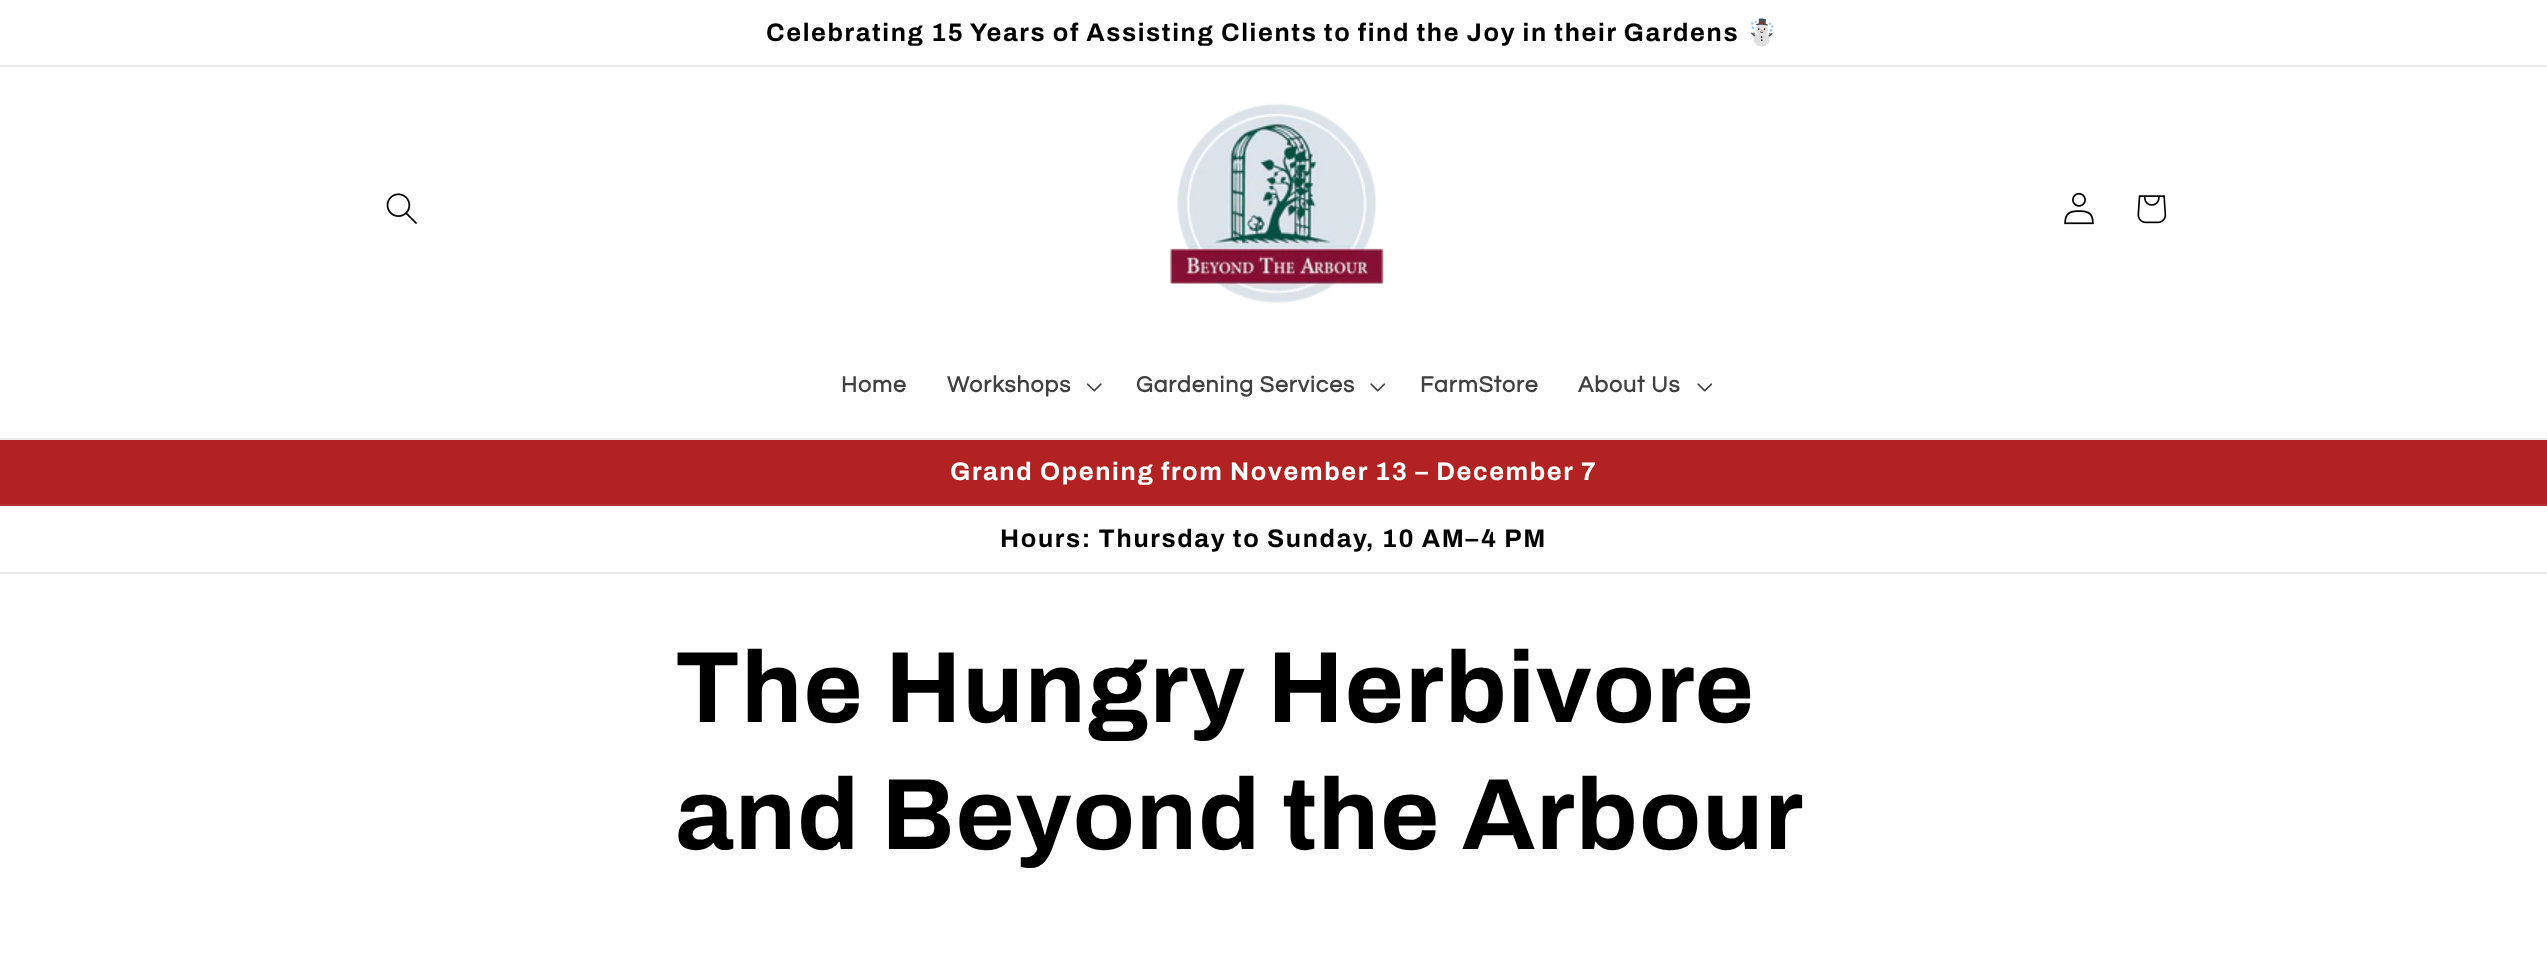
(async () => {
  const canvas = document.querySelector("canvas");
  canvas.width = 2547;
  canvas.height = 965;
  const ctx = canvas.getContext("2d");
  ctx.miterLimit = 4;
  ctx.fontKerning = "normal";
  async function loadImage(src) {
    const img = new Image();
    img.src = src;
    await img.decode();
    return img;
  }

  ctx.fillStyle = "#ffffff";
  ctx.fillRect(0, 0, 2547, 965);
  ctx.fillStyle = "#ebebeb";
  ctx.fillRect(0, 65, 2547, 2);
  ctx.fillRect(0, 438, 2547, 2);
  ctx.drawImage(await loadImage("img/1.png"), 386, 193, 31, 31);
  ctx.drawImage(await loadImage("img/2.png"), 1169, 103, 215, 201);
  ctx.drawImage(await loadImage("img/3.png"), 2064, 192, 30, 33);
  ctx.drawImage(await loadImage("img/4.png"), 2137, 195, 30, 29);
  ctx.drawImage(await loadImage("img/5.png"), 1086, 383, 16, 9);
  ctx.drawImage(await loadImage("img/6.png"), 1370, 383, 16, 9);
  ctx.drawImage(await loadImage("img/6.png"), 1697, 383, 16, 9);
  for (const [x, y, w, h, color] of [
    [0, 440, 2547, 64, "#b22222"],
    [0, 504, 2547, 2, "#b83434"],
    [0, 572, 2547, 2, "#ebebeb"],
  ]) {
    ctx.fillStyle = color;
    ctx.fillRect(x, y, w, h);
  }
  ctx.letterSpacing = "1.65px";
  ctx.wordSpacing = "-0.2px";
  ctx.font = "bold 25.35px Archivo";
  ctx.fillStyle = "#000000";
  ctx.fillText("Celebrating 15 Years of Assisting Clients to find the Joy in their Gardens", 766, 41);
  ctx.wordSpacing = "0px";
  ctx.font = "bold 25.35px Noto Color Emoji";
  ctx.fillText("☃️", 1746, 41);
  ctx.letterSpacing = "1px";
  ctx.font = "bold 23px Questrial";
  ctx.fillStyle = "#404040";
  for (const [text, x, y] of [
    ["Home", 841, 392],
    ["Workshops", 947, 392],
    ["Gardening Services", 1136, 392],
    ["FarmStore", 1420, 392],
    ["About Us", 1578, 392],
  ]) {
    ctx.fillText(text, x, y);
  }
  ctx.letterSpacing = "1.65px";
  ctx.font = "bold 25.35px Archivo";
  ctx.fillStyle = "#ffffff";
  ctx.fillText("Grand Opening from November 13 – December 7", 950, 480);
  ctx.fillStyle = "#000000";
  ctx.fillText("Hours: Thursday to Sunday, 10 AM–4 PM", 1000, 547);
  ctx.letterSpacing = "1.2px";
  ctx.font = "bold 101.4px Archivo";
  ctx.fillText("The Hungry Herbivore", 675, 722);
  ctx.fillText("and Beyond the Arbour", 675, 849);
})();
